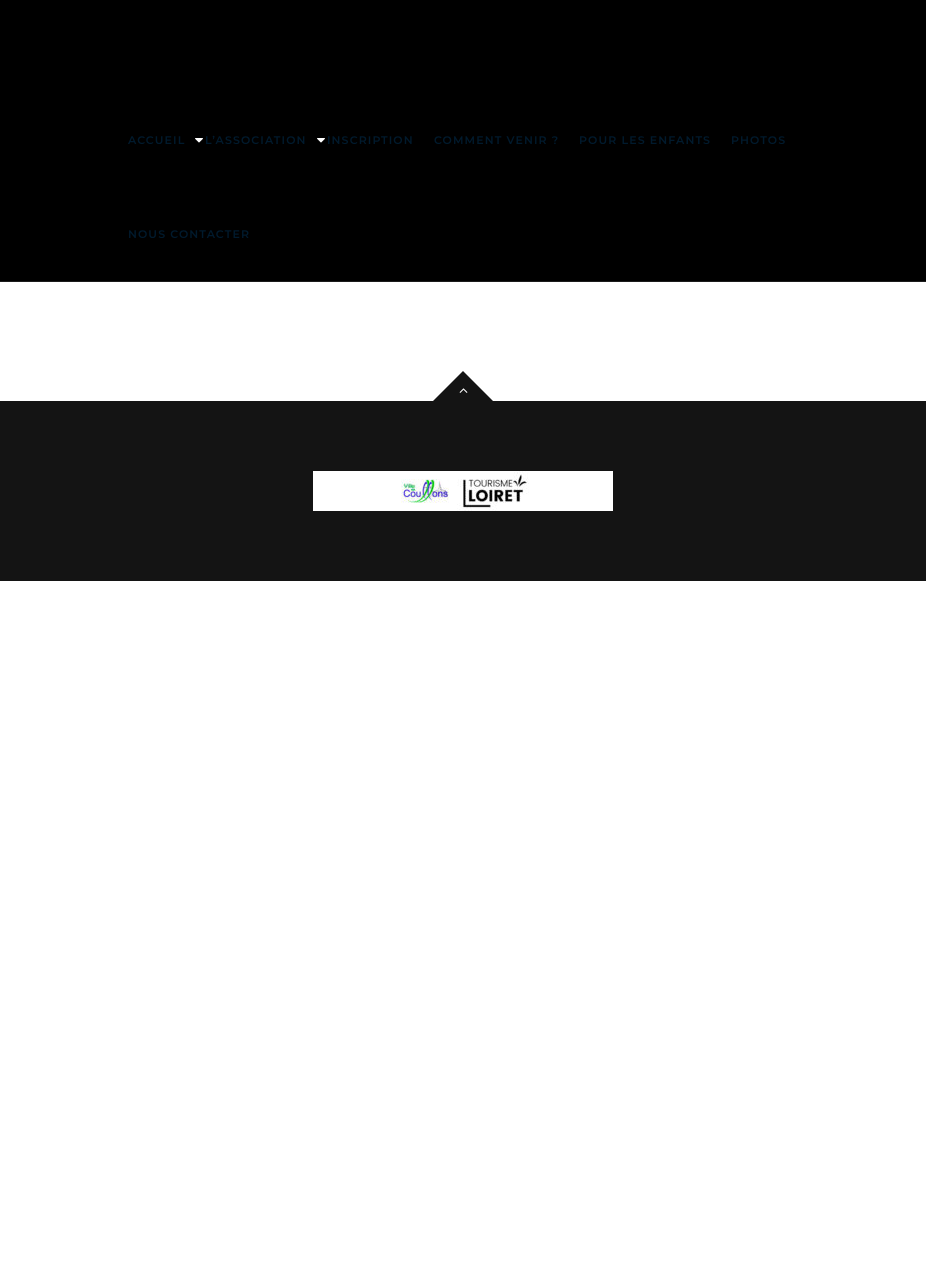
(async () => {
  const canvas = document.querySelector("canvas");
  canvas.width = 926;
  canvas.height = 1274;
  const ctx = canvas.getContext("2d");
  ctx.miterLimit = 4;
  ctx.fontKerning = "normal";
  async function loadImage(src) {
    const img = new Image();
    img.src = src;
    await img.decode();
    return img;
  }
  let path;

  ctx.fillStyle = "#ffffff";
  ctx.fillRect(0, 0, 926, 1274);
  ctx.fillStyle = "#000000";
  ctx.fillRect(0, 0, 926, 281);
  ctx.fillStyle = "#1c1c1c";
  ctx.fillRect(0, 281, 926, 1);
  ctx.drawImage(await loadImage("img/1.png"), 195, 138, 8, 5);
  ctx.drawImage(await loadImage("img/1.png"), 317, 138, 8, 5);
  ctx.fillStyle = "#141414";
  ctx.fillRect(0, 401, 926, 180);
  path = new Path2D("M503 411H423L463 371Z");
  ctx.fill(path);
  ctx.drawImage(await loadImage("img/2.png"), 459, 388, 9, 5);
  ctx.drawImage(await loadImage("img/3.png"), 313, 471, 300, 40);
  ctx.letterSpacing = "1.1px";
  ctx.font = "600 11px Montserrat";
  ctx.fillStyle = "#001a2d";
  for (const [text, x, y] of [
    ["ACCUEIL", 128, 144],
    ["L’ASSOCIATION", 205, 144],
    ["INSCRIPTION", 327, 144],
    ["COMMENT VENIR ?", 434, 144],
    ["POUR LES ENFANTS", 579, 144],
    ["PHOTOS", 731, 144],
    ["NOUS CONTACTER", 128, 238],
  ]) {
    ctx.fillText(text, x, y);
  }
})();
